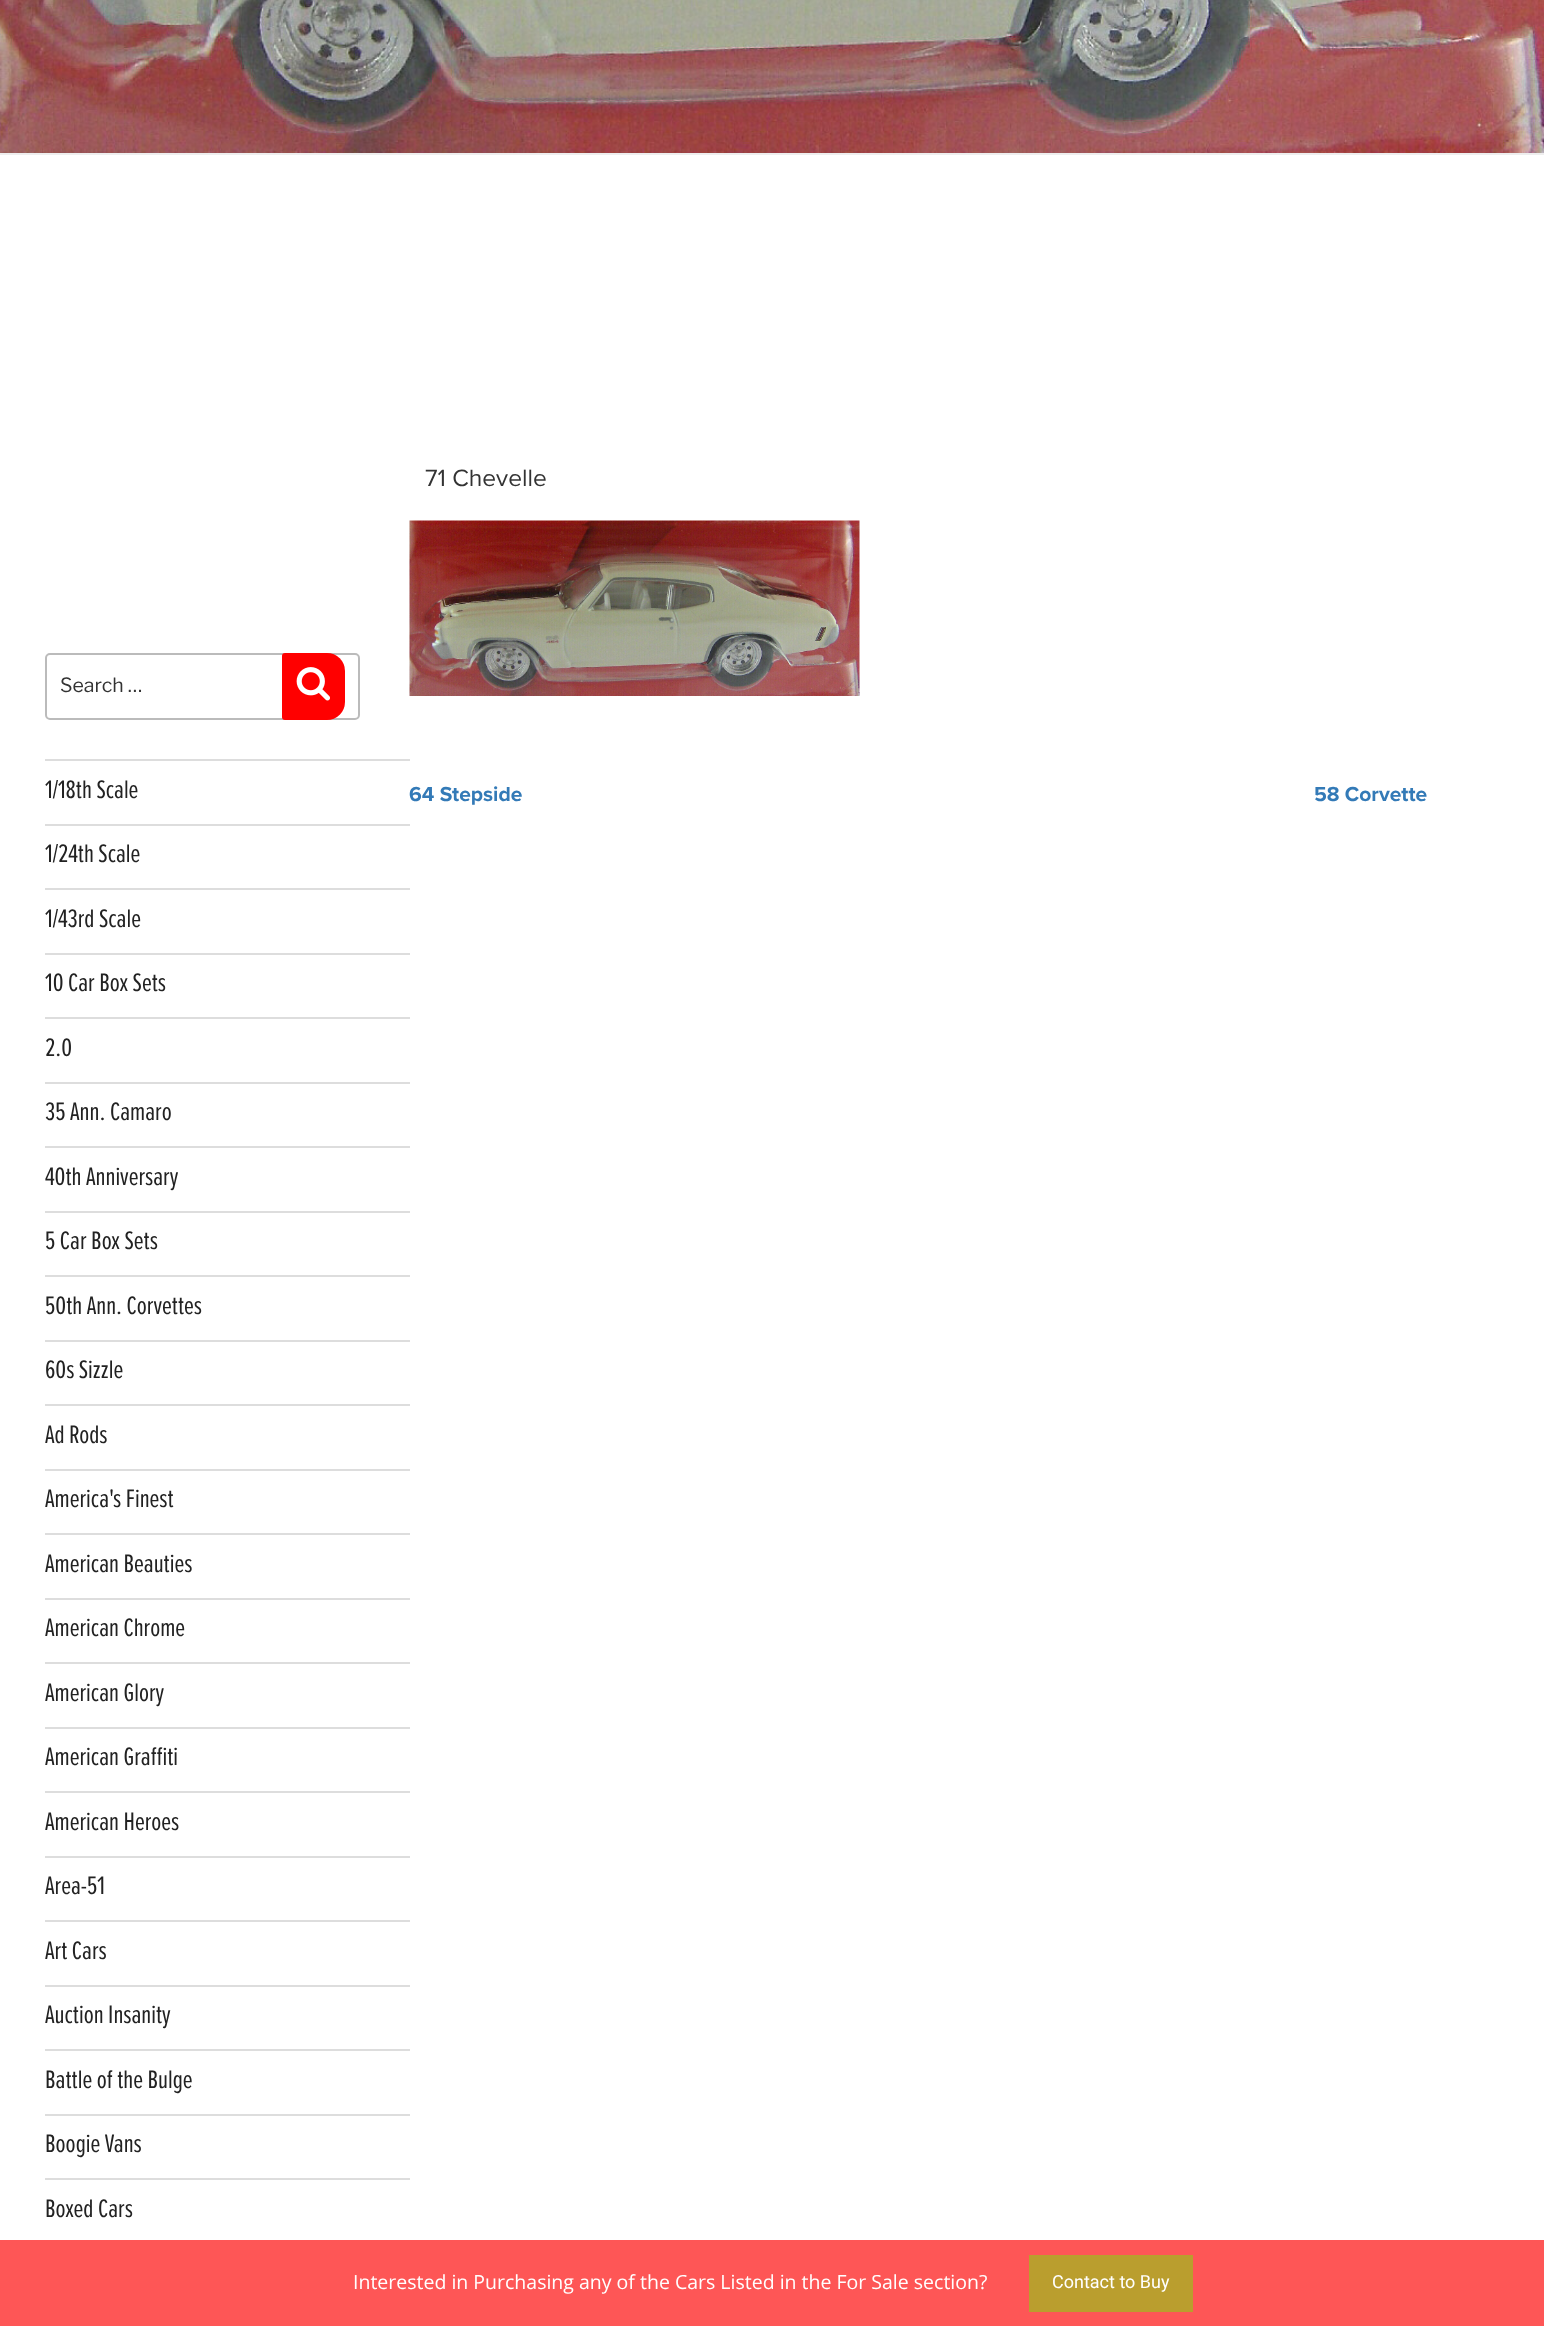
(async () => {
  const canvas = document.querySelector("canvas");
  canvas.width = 1544;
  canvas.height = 2326;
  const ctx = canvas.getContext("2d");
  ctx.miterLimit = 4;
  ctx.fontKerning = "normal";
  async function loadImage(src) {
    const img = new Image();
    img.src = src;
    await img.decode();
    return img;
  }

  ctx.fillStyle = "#ffffff";
  ctx.fillRect(0, 0, 1544, 2326);
  ctx.fillStyle = "#eeeeee";
  ctx.fillRect(0, 153, 1544, 2);
  ctx.drawImage(await loadImage("img/1.png"), 0, 0, 1544, 153);
  ctx.drawImage(await loadImage("img/2.png"), 409, 520, 451, 176);
  ctx.beginPath();
  ctx.roundRect(46, 654, 313, 65, 4);
  ctx.strokeStyle = "#bbbbbb";
  ctx.lineWidth = 2;
  ctx.stroke();
  ctx.fillStyle = "#ff0000";
  ctx.beginPath();
  ctx.roundRect(282, 653, 63, 67, [3, 18, 18, 3]);
  ctx.fill();
  ctx.drawImage(await loadImage("img/3.png"), 296, 667, 34, 34);
  for (const [x, y, w, h, color] of [
    [45, 759, 365, 2, "#dddddd"],
    [45, 824, 365, 2, "#dddddd"],
    [45, 888, 365, 2, "#dddddd"],
    [45, 953, 365, 2, "#dddddd"],
    [45, 1017, 365, 2, "#dddddd"],
    [45, 1082, 365, 2, "#dddddd"],
    [45, 1146, 365, 2, "#dddddd"],
    [45, 1211, 365, 2, "#dddddd"],
    [45, 1275, 365, 2, "#dddddd"],
    [45, 1340, 365, 2, "#dddddd"],
    [45, 1404, 365, 2, "#dddddd"],
    [45, 1469, 365, 2, "#dddddd"],
    [45, 1533, 365, 2, "#dddddd"],
    [45, 1598, 365, 2, "#dddddd"],
    [45, 1662, 365, 2, "#dddddd"],
    [45, 1727, 365, 2, "#dddddd"],
    [45, 1791, 365, 2, "#dddddd"],
    [45, 1856, 365, 2, "#dddddd"],
    [45, 1920, 365, 2, "#dddddd"],
    [45, 1985, 365, 2, "#dddddd"],
    [45, 2049, 365, 2, "#dddddd"],
    [45, 2114, 365, 2, "#dddddd"],
    [45, 2178, 365, 2, "#dddddd"],
    [0, 2240, 1544, 86, "#fe5656"],
    [1029, 2255, 164, 57, "#ba9e2e"],
  ]) {
    ctx.fillStyle = color;
    ctx.fillRect(x, y, w, h);
  }
  ctx.font = "24.5px Proxima Nova";
  ctx.fillStyle = "#333333";
  ctx.fillText("71 Chevelle", 425, 486);
  ctx.font = "bold 21px Proxima Nova";
  ctx.fillStyle = "#337ab7";
  ctx.fillText("64 Stepside", 409, 801);
  ctx.fillText("58 Corvette", 1314, 801);
  ctx.font = "100 19.5px Libre Franklin";
  ctx.fillStyle = "#333333";
  ctx.fillText("Search …", 60, 692);
  ctx.font = "26.25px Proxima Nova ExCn";
  ctx.fillStyle = "#222222";
  for (const [text, x, y] of [
    ["1/18th Scale", 45, 798],
    ["1/24th Scale", 45, 862],
    ["1/43rd Scale", 45, 927],
    ["10 Car Box Sets", 45, 991],
    ["2.0", 45, 1056],
    ["35 Ann. Camaro", 45, 1120],
    ["40th Anniversary", 45, 1185],
    ["5 Car Box Sets", 45, 1249],
    ["50th Ann. Corvettes", 45, 1314],
    ["60s Sizzle", 45, 1378],
    ["Ad Rods", 45, 1443],
    ["America's Finest", 45, 1507],
    ["American Beauties", 45, 1572],
    ["American Chrome", 45, 1636],
    ["American Glory", 45, 1701],
    ["American Graffiti", 45, 1765],
    ["American Heroes", 45, 1830],
    ["Area-51", 45, 1894],
    ["Art Cars", 45, 1959],
    ["Auction Insanity", 45, 2023],
    ["Battle of the Bulge", 45, 2088],
    ["Boogie Vans", 45, 2152],
    ["Boxed Cars", 45, 2217],
  ]) {
    ctx.fillText(text, x, y);
  }
  ctx.font = "19.5px Open Sans";
  ctx.fillStyle = "#ffffff";
  ctx.fillText("Interested in Purchasing any of the Cars Listed in the For Sale section?", 353, 2289);
  ctx.font = "18px Roboto";
  ctx.fillText("Contact to Buy", 1052, 2288);
})();
